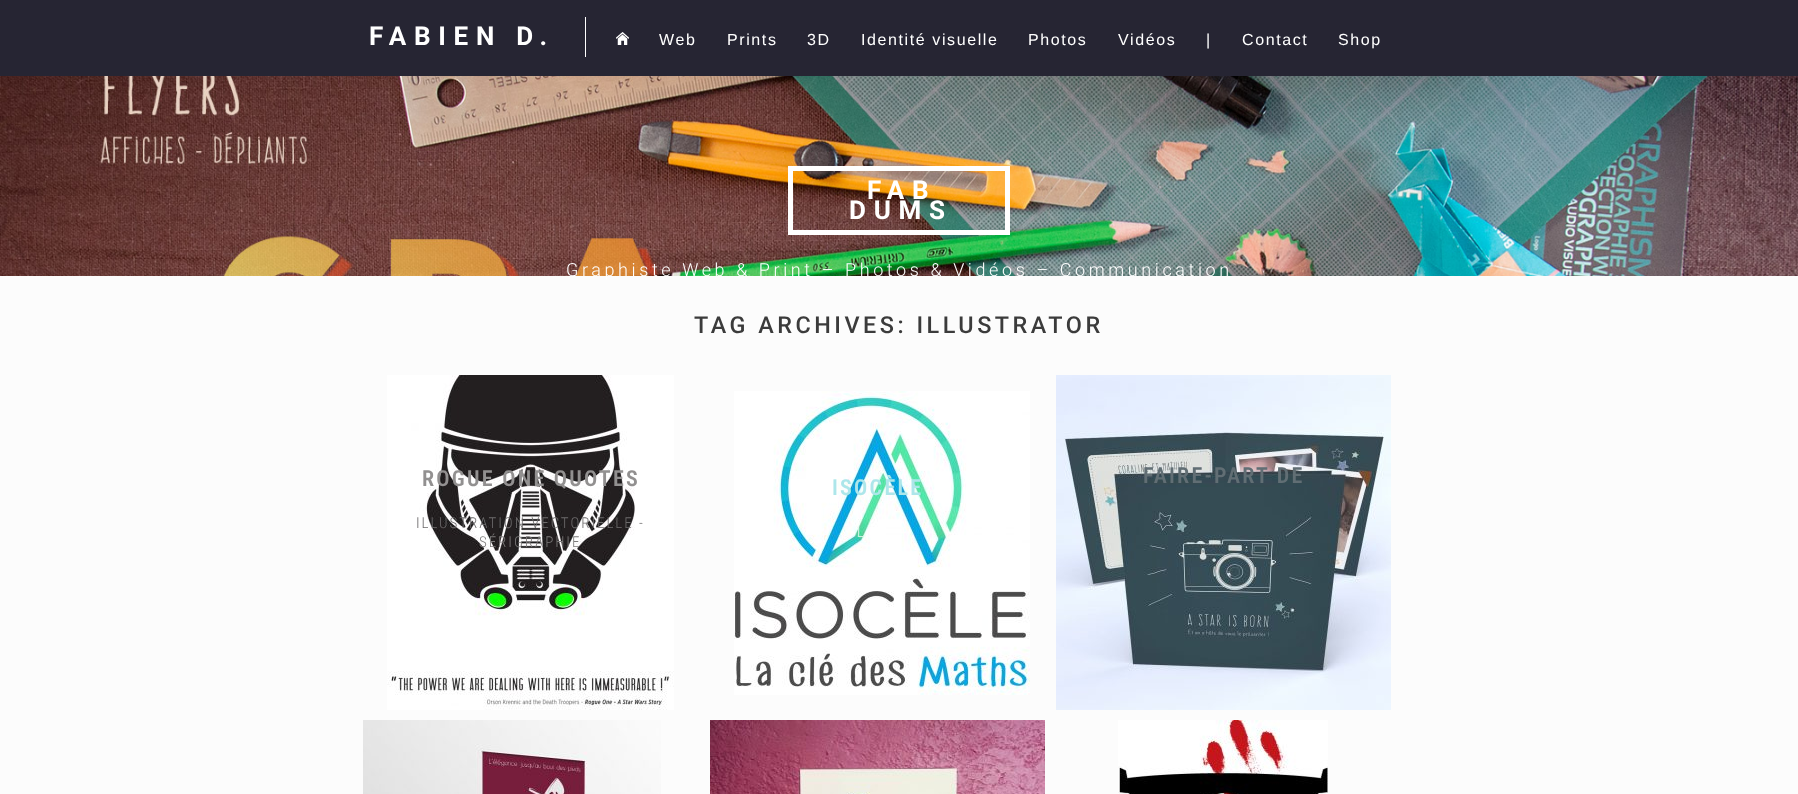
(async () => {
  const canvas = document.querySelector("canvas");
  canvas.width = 1798;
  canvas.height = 794;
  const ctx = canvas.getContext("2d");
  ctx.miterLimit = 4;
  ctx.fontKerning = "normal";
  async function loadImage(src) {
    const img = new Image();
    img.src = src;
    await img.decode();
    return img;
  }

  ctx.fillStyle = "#ffffff";
  ctx.fillRect(0, 0, 1798, 794);
  ctx.drawImage(await loadImage("img/1.png"), 0, 76, 1798, 200);
  ctx.fillStyle = "#262533";
  ctx.fillRect(0, 0, 1798, 76);
  ctx.fillStyle = "#ffffff";
  ctx.fillRect(585, 17, 1, 40);
  ctx.drawImage(await loadImage("img/2.png"), 616, 32, 13, 13);
  ctx.strokeStyle = "#ffffff";
  ctx.lineWidth = 5;
  ctx.strokeRect(790.5, 168.5, 217, 64);
  ctx.fillStyle = "#fcfcfc";
  ctx.fillRect(0, 276, 1798, 518);
  ctx.drawImage(await loadImage("img/3.png"), 387, 375, 287, 335);
  ctx.drawImage(await loadImage("img/4.png"), 734, 391, 296, 304);
  ctx.drawImage(await loadImage("img/5.png"), 1056, 375, 335, 335);
  ctx.drawImage(await loadImage("img/6.png"), 363, 720, 298, 74);
  ctx.drawImage(await loadImage("img/7.png"), 710, 720, 335, 74);
  ctx.drawImage(await loadImage("img/8.png"), 1118, 720, 210, 74);
  ctx.letterSpacing = "7.75px";
  ctx.font = "bold 26px Roboto";
  ctx.fillStyle = "#ffffff";
  ctx.fillText("FABIEN D.", 369, 45);
  ctx.letterSpacing = "1.6px";
  ctx.font = "16px Liberation Sans";
  for (const [text, x, y] of [
    ["Web", 659, 45],
    ["Prints", 727, 45],
    ["3D", 807, 45],
    ["Identité visuelle", 861, 45],
    ["Photos", 1028, 45],
    ["Vidéos", 1118, 45],
    ["|", 1206, 45],
    ["Contact", 1242, 45],
    ["Shop", 1338, 45],
  ]) {
    ctx.fillText(text, x, y);
  }
  ctx.letterSpacing = "7.75px";
  ctx.font = "bold 26px Roboto";
  ctx.fillText("FAB", 867, 199);
  ctx.fillText("DUMS", 849, 219);
  ctx.letterSpacing = "3.6px";
  ctx.font = "300 18px Roboto";
  ctx.fillText("Graphiste Web & Print – Photos & Vidéos – Communication", 566, 276);
  ctx.letterSpacing = "3.5px";
  ctx.font = "500 23.4px Roboto";
  ctx.fillStyle = "#3b3b3b";
  ctx.fillText("TAG ARCHIVES: ILLUSTRATOR", 694, 333);
  ctx.letterSpacing = "2.25px";
  ctx.font = "600 22px Roboto Condensed";
  ctx.fillStyle = "#929090";
  ctx.fillText("ROGUE ONE QUOTES", 422, 486);
  ctx.letterSpacing = "1.95px";
  ctx.font = "300 15px Roboto Condensed";
  ctx.fillStyle = "#6d6b6c";
  ctx.fillText("ILLUSTRATION VECTORIELLE -", 416, 528);
  ctx.fillStyle = "#7c7a7a";
  ctx.fillText("SÉRIGRAPHIE", 479, 547);
  ctx.letterSpacing = "2.25px";
  ctx.font = "600 22px Roboto Condensed";
  ctx.fillStyle = "#ade6ea";
  ctx.fillText("ISOCÈLE", 832, 495);
  ctx.letterSpacing = "1.95px";
  ctx.font = "300 15px Roboto Condensed";
  ctx.fillStyle = "#e8f9f2";
  ctx.fillText("L", 857, 537);
  ctx.letterSpacing = "2.25px";
  ctx.font = "600 22px Roboto Condensed";
  ctx.fillStyle = "#616e74";
  ctx.fillText("FAIRE-PART DE", 1143, 483);
})();
